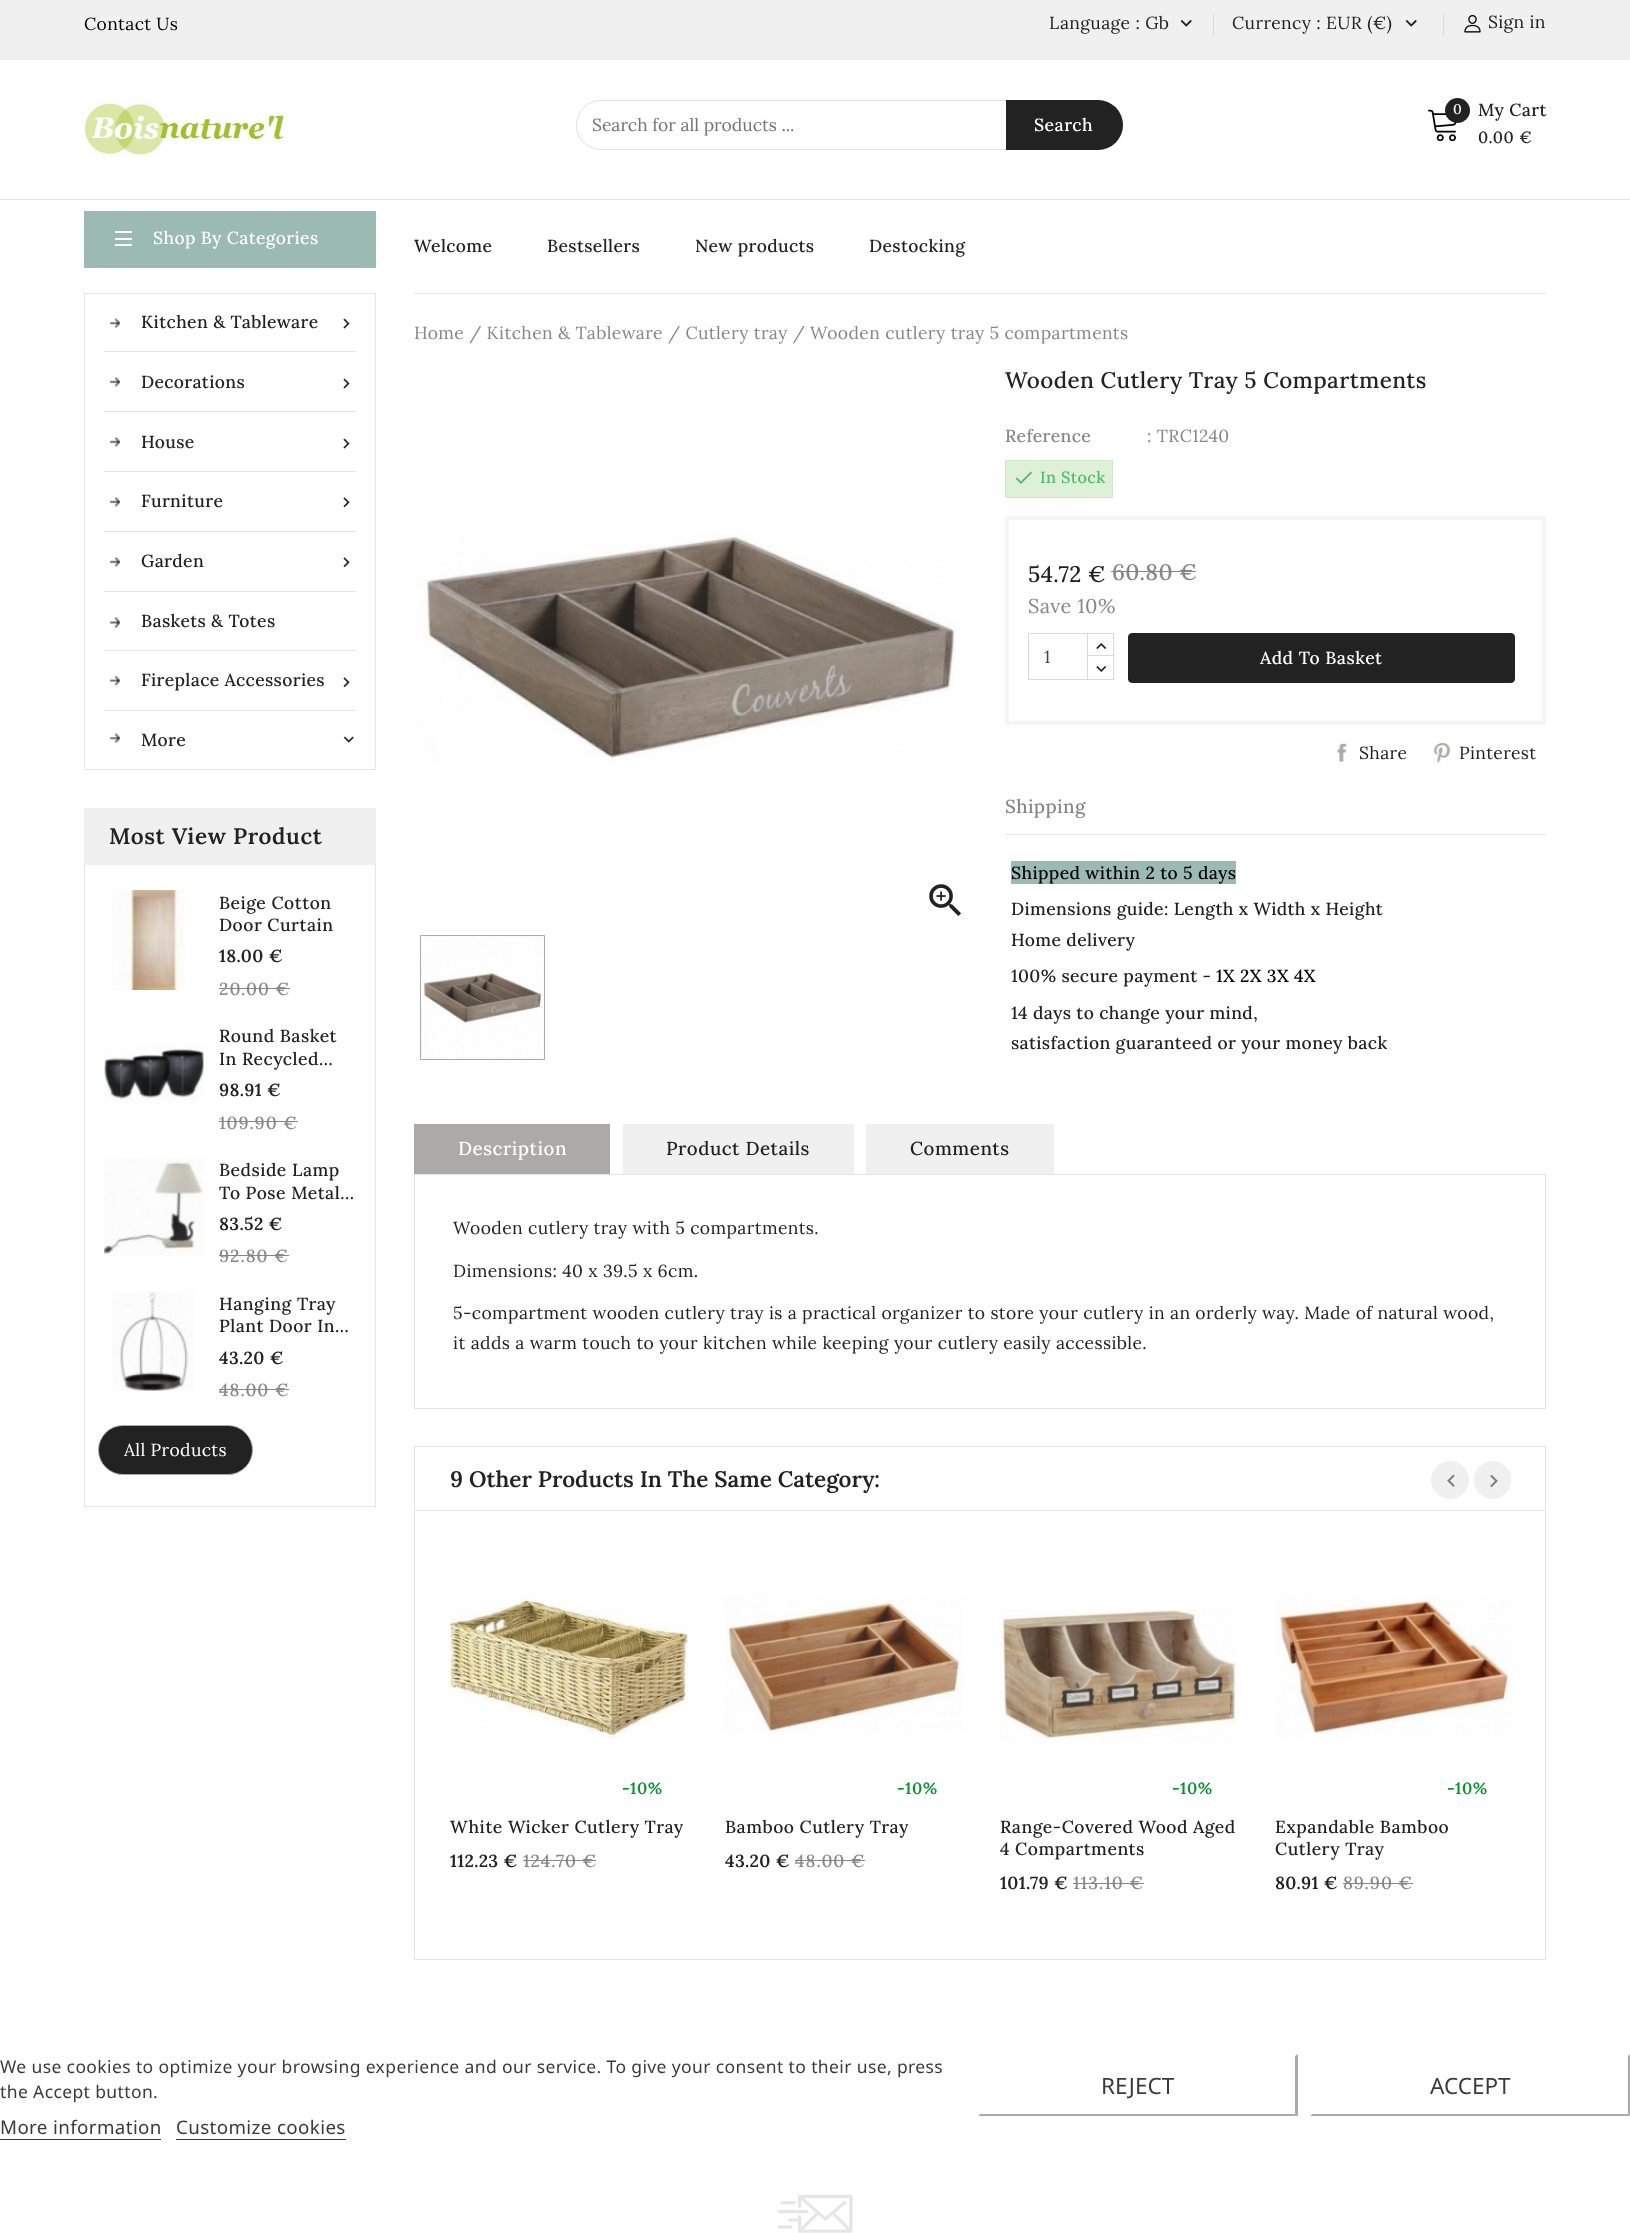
(async () => {
  const canvas = document.querySelector("canvas");
  canvas.width = 1630;
  canvas.height = 2233;
  const ctx = canvas.getContext("2d");
  ctx.miterLimit = 4;
  ctx.fontKerning = "normal";
  async function loadImage(src) {
    const img = new Image();
    img.src = src;
    await img.decode();
    return img;
  }
  let path;

  ctx.fillStyle = "#ffffff";
  ctx.fillRect(0, 0, 1630, 2233);
  ctx.fillStyle = "#f0f0f0";
  ctx.fillRect(0, 0, 1630, 60);
  ctx.drawImage(await loadImage("img/1.png"), 1180, 19, 12, 8);
  ctx.fillStyle = "#dbdbdb";
  ctx.fillRect(1443, 14, 1, 22);
  ctx.fillRect(1213, 14, 1, 22);
  ctx.drawImage(await loadImage("img/1.png"), 1405, 19, 12, 8);
  ctx.drawImage(await loadImage("img/2.png"), 1464, 15, 17, 18);
  ctx.fillStyle = "#e5e5e5";
  ctx.fillRect(0, 199, 1630, 1);
  ctx.drawImage(await loadImage("img/3.png"), 84, 101, 206, 57);
  ctx.beginPath();
  ctx.roundRect(576.5, 100.5, 546, 49, 24.5);
  ctx.strokeStyle = "#e0e0e0";
  ctx.stroke();
  ctx.fillStyle = "#222222";
  ctx.beginPath();
  ctx.roundRect(1006, 100, 117, 50, [0, 25, 25, 0]);
  ctx.fill();
  ctx.drawImage(await loadImage("img/4.png"), 1428, 109, 29, 32);
  ctx.beginPath();
  ctx.arc(1457.5, 110.5, 12.5, 0, Math.PI * 2);
  ctx.fill();
  for (const [x, y, w, h, color] of [
    [84, 211, 292, 57, "#9bbab1"],
    [115, 244, 17, 2, "#ffffff"],
    [115, 238, 17, 2, "#ffffff"],
    [115, 231, 17, 2, "#ffffff"],
  ]) {
    ctx.fillStyle = color;
    ctx.fillRect(x, y, w, h);
  }
  ctx.strokeStyle = "#e5e5e5";
  ctx.strokeRect(84.5, 293.5, 291, 476);
  ctx.drawImage(await loadImage("img/5.png"), 110, 318, 10, 10);
  ctx.fillStyle = "#e5e5e5";
  ctx.fillRect(104, 351, 252, 1);
  ctx.drawImage(await loadImage("img/6.png"), 343, 318, 7, 11);
  ctx.drawImage(await loadImage("img/7.png"), 110, 377, 10, 10);
  ctx.fillRect(104, 411, 252, 1);
  ctx.drawImage(await loadImage("img/6.png"), 343, 378, 7, 11);
  ctx.drawImage(await loadImage("img/7.png"), 110, 437, 10, 10);
  ctx.fillRect(104, 471, 252, 1);
  ctx.drawImage(await loadImage("img/6.png"), 343, 438, 7, 11);
  ctx.drawImage(await loadImage("img/7.png"), 110, 497, 10, 10);
  ctx.fillRect(104, 531, 252, 1);
  ctx.drawImage(await loadImage("img/8.png"), 343, 497, 7, 11);
  ctx.drawImage(await loadImage("img/7.png"), 110, 557, 10, 10);
  ctx.fillRect(104, 591, 252, 1);
  ctx.drawImage(await loadImage("img/8.png"), 343, 557, 7, 11);
  ctx.drawImage(await loadImage("img/9.png"), 110, 617, 10, 11);
  ctx.fillRect(104, 650, 252, 1);
  ctx.drawImage(await loadImage("img/10.png"), 110, 675, 10, 11);
  ctx.fillRect(104, 710, 252, 1);
  ctx.drawImage(await loadImage("img/8.png"), 343, 677, 7, 11);
  ctx.drawImage(await loadImage("img/5.png"), 110, 733, 10, 10);
  ctx.drawImage(await loadImage("img/11.png"), 343, 736, 11, 7);
  for (const [x, y, w, h, color] of [
    [84, 808, 292, 57, "#f0f0f0"],
    [375, 865, 1, 643, "#e5e5e5"],
    [84, 1506, 292, 1, "#e5e5e5"],
    [84, 865, 1, 643, "#e5e5e5"],
  ]) {
    ctx.fillStyle = color;
    ctx.fillRect(x, y, w, h);
  }
  ctx.drawImage(await loadImage("img/12.png"), 112, 890, 73, 100);
  ctx.fillStyle = "#878787";
  ctx.fillRect(219, 988, 71, 1);
  ctx.drawImage(await loadImage("img/13.png"), 104, 1044, 100, 60);
  ctx.fillRect(219, 1121, 79, 1);
  ctx.drawImage(await loadImage("img/14.png"), 103, 1158, 101, 99);
  ctx.fillRect(219, 1255, 70, 1);
  ctx.drawImage(await loadImage("img/15.png"), 112, 1291, 82, 100);
  ctx.fillRect(219, 1389, 70, 1);
  ctx.fillStyle = "#222222";
  ctx.beginPath();
  ctx.roundRect(98.5, 1425.5, 154, 49, 24.5);
  ctx.fill();
  ctx.strokeStyle = "#acaaa9";
  ctx.stroke();
  ctx.fillStyle = "#e5e5e5";
  ctx.fillRect(414, 293, 1132, 1);
  ctx.drawImage(await loadImage("img/16.png"), 414, 533, 542, 231);
  ctx.drawImage(await loadImage("img/17.png"), 929, 884, 32, 32);
  ctx.fillStyle = "#f5f5f5";
  ctx.beginPath();
  ctx.rect(420.5, 935.5, 124, 124);
  ctx.fill();
  ctx.stroke();
  ctx.drawImage(await loadImage("img/18.png"), 421, 936, 123, 123);
  ctx.fillStyle = "#dff0d8";
  ctx.beginPath();
  ctx.rect(1005.5, 460.5, 107, 37);
  ctx.fill();
  ctx.strokeStyle = "#d0e9c6";
  ctx.stroke();
  ctx.drawImage(await loadImage("img/19.png"), 1015, 471, 18, 13);
  ctx.strokeStyle = "#f5f5f5";
  ctx.lineWidth = 4;
  ctx.strokeRect(1007, 518, 537, 205);
  ctx.fillStyle = "#878787";
  ctx.fillRect(1111, 571, 85, 1);
  ctx.strokeStyle = "#d9d9d9";
  ctx.lineWidth = 1;
  ctx.strokeRect(1086.5, 633.5, 27, 24);
  ctx.fillStyle = "#ffffff";
  ctx.fillRect(1088, 657, 25, 1);
  ctx.strokeRect(1086.5, 655.5, 27, 24);
  ctx.fillRect(1086, 634, 1, 45);
  ctx.strokeRect(1028.5, 633.5, 59, 46);
  ctx.drawImage(await loadImage("img/20.png"), 1096, 643, 11, 6);
  ctx.drawImage(await loadImage("img/21.png"), 1096, 666, 11, 6);
  ctx.fillStyle = "#222222";
  ctx.beginPath();
  ctx.roundRect(1128.5, 633.5, 386, 49, 3.5);
  ctx.fill();
  ctx.strokeStyle = "#222222";
  ctx.stroke();
  ctx.drawImage(await loadImage("img/22.png"), 1337, 743, 10, 19);
  ctx.drawImage(await loadImage("img/23.png"), 1433, 743, 18, 20);
  for (const [x, y, w, h, color] of [
    [1005, 834, 541, 1, "#e5e5e5"],
    [1011, 861, 225, 23, "#9bbab1"],
    [414, 1124, 196, 50, "#acaaa9"],
    [623, 1124, 231, 50, "#f0f0f0"],
    [866, 1124, 188, 50, "#f0f0f0"],
  ]) {
    ctx.fillStyle = color;
    ctx.fillRect(x, y, w, h);
  }
  ctx.strokeStyle = "#e5e5e5";
  ctx.strokeRect(414.5, 1174.5, 1131, 234);
  for (const [x, y, w, h, color] of [
    [414, 1446, 1132, 1, "#e5e5e5"],
    [1545, 1446, 1, 64, "#e5e5e5"],
    [414, 1446, 1, 64, "#e5e5e5"],
  ]) {
    ctx.fillStyle = color;
    ctx.fillRect(x, y, w, h);
  }
  ctx.fillStyle = "#f0f0f0";
  ctx.beginPath();
  ctx.arc(1450, 1480, 18.5, 0, Math.PI * 2);
  ctx.fill();
  ctx.strokeStyle = "#f0f0f0";
  ctx.stroke();
  ctx.drawImage(await loadImage("img/24.png"), 1447, 1474, 8, 13);
  ctx.beginPath();
  ctx.roundRect(1474.5, 1461.5, 36, 37, 18);
  ctx.fill();
  ctx.stroke();
  ctx.drawImage(await loadImage("img/25.png"), 1490, 1474, 8, 14);
  ctx.strokeStyle = "#e5e5e5";
  ctx.strokeRect(414.5, 1510.5, 1131, 449);
  ctx.drawImage(await loadImage("img/26.png"), 450, 1595, 238, 144);
  ctx.fillStyle = "#878787";
  ctx.fillRect(523, 1860, 73, 1);
  ctx.drawImage(await loadImage("img/27.png"), 725, 1595, 238, 138);
  ctx.fillRect(795, 1860, 70, 1);
  ctx.drawImage(await loadImage("img/28.png"), 1000, 1609, 238, 134);
  ctx.fillRect(1073, 1883, 71, 1);
  ctx.drawImage(await loadImage("img/29.png"), 1275, 1595, 237, 143);
  for (const [x, y, w, h, color] of [
    [1343, 1883, 70, 1, "#878787"],
    [0, 2139, 161, 1, "#3b3b3b"],
    [176, 2139, 170, 1, "#3b3b3b"],
  ]) {
    ctx.fillStyle = color;
    ctx.fillRect(x, y, w, h);
  }
  ctx.fillStyle = "#aaaaaa";
  path = new Path2D("M1298 2054V2116L1295 2114V2056Z");
  ctx.fill(path);
  path = new Path2D("M1298 2116H978L980 2114H1295Z");
  ctx.fill(path);
  ctx.fillStyle = "#ffffff";
  path = new Path2D("M978 2116V2054L980 2056V2114Z");
  ctx.fill(path);
  ctx.fillStyle = "#aaaaaa";
  path = new Path2D("M1630 2054V2116L1628 2114V2056Z");
  ctx.fill(path);
  path = new Path2D("M1630 2116H1310L1312 2114H1628Z");
  ctx.fill(path);
  ctx.fillStyle = "#ffffff";
  path = new Path2D("M1310 2116V2054L1312 2056V2114Z");
  ctx.fill(path);
  ctx.drawImage(await loadImage("img/30.png"), 778, 2194, 75, 39);
  ctx.letterSpacing = "0.38px";
  ctx.font = "17.5px Lora";
  ctx.fillStyle = "#000000";
  ctx.fillText("Contact Us", 84, 30);
  ctx.fillStyle = "#222222";
  for (const [text, x, y] of [
    ["Language : Gb", 1049, 29],
    ["Currency : EUR (€)", 1232, 29],
    ["Sign in", 1488, 28],
  ]) {
    ctx.fillText(text, x, y);
  }
  ctx.letterSpacing = "0px";
  ctx.fillStyle = "#757575";
  ctx.fillText("Search for all products ...", 592, 131);
  ctx.letterSpacing = "0.5px";
  ctx.font = "500 17.5px Lora";
  ctx.fillStyle = "#ffffff";
  ctx.fillText("Search", 1034, 131);
  ctx.letterSpacing = "0.38px";
  ctx.font = "500 14px Lora";
  ctx.fillText("0", 1453, 114);
  ctx.font = "500 17.5px Lora";
  ctx.fillStyle = "#222222";
  ctx.fillText("My Cart", 1478, 116);
  ctx.letterSpacing = "0.6px";
  ctx.font = "500 16.25px Lora";
  ctx.fillText("0.00 €", 1478, 143);
  ctx.letterSpacing = "0.38px";
  ctx.font = "500 17.5px Lora";
  ctx.fillStyle = "#ffffff";
  ctx.fillText("Shop By Categories", 153, 244);
  ctx.fillStyle = "#222222";
  for (const [text, x, y] of [
    ["Kitchen & Tableware", 141, 328],
    ["Decorations", 141, 388],
    ["House", 141, 448],
    ["Furniture", 141, 507],
    ["Garden", 141, 567],
    ["Baskets & Totes", 141, 627],
    ["Fireplace Accessories", 141, 686],
    ["More", 141, 746],
  ]) {
    ctx.fillText(text, x, y);
  }
  ctx.letterSpacing = "0.6px";
  ctx.font = "600 22.5px Lora";
  ctx.fillText("Most View Product", 109, 844);
  ctx.letterSpacing = "0.5px";
  ctx.font = "500 17.5px Lora";
  ctx.fillText("Beige Cotton", 219, 909);
  ctx.fillText("Door Curtain", 219, 931);
  ctx.letterSpacing = "0.38px";
  ctx.font = "600 17.5px Lora";
  ctx.fillText("18.00 €", 219, 962);
  ctx.letterSpacing = "1px";
  ctx.font = "500 17.5px Lora";
  ctx.fillStyle = "#878787";
  ctx.fillText("20.00 €", 219, 995);
  ctx.letterSpacing = "0.5px";
  ctx.fillStyle = "#222222";
  ctx.fillText("Round Basket", 219, 1042);
  ctx.fillText("In Recycled...", 219, 1065);
  ctx.letterSpacing = "0.38px";
  ctx.font = "600 17.5px Lora";
  ctx.fillText("98.91 €", 219, 1096);
  ctx.letterSpacing = "1px";
  ctx.font = "500 17.5px Lora";
  ctx.fillStyle = "#878787";
  ctx.fillText("109.90 €", 219, 1129);
  ctx.letterSpacing = "0.5px";
  ctx.fillStyle = "#222222";
  ctx.fillText("Bedside Lamp", 219, 1176);
  ctx.fillText("To Pose Metal...", 219, 1199);
  ctx.letterSpacing = "0.38px";
  ctx.font = "600 17.5px Lora";
  ctx.fillText("83.52 €", 219, 1230);
  ctx.letterSpacing = "1px";
  ctx.font = "500 17.5px Lora";
  ctx.fillStyle = "#878787";
  ctx.fillText("92.80 €", 219, 1262);
  ctx.letterSpacing = "0.5px";
  ctx.fillStyle = "#222222";
  ctx.fillText("Hanging Tray", 219, 1310);
  ctx.fillText("Plant Door In...", 219, 1332);
  ctx.letterSpacing = "0.38px";
  ctx.font = "600 17.5px Lora";
  ctx.fillText("43.20 €", 219, 1364);
  ctx.letterSpacing = "1px";
  ctx.font = "500 17.5px Lora";
  ctx.fillStyle = "#878787";
  ctx.fillText("48.00 €", 219, 1396);
  ctx.letterSpacing = "0.38px";
  ctx.font = "17.5px Lora";
  ctx.fillStyle = "#ffffff";
  ctx.fillText("All Products", 124, 1456);
  ctx.font = "500 17.5px Lora";
  ctx.fillStyle = "#222222";
  for (const [text, x, y] of [
    ["Welcome", 414, 252],
    ["Bestsellers", 547, 252],
    ["New products", 695, 252],
    ["Destocking", 869, 252],
  ]) {
    ctx.fillText(text, x, y);
  }
  ctx.font = "17.5px Lora";
  ctx.fillStyle = "#878787";
  ctx.fillText("Home / Kitchen & Tableware / Cutlery tray / Wooden cutlery tray 5 compartments", 414, 339);
  ctx.font = "500 22.5px Lora";
  ctx.fillStyle = "#222222";
  ctx.fillText("Wooden Cutlery Tray 5 Compartments", 1005, 388);
  ctx.font = "500 17.5px Lora";
  ctx.fillStyle = "#878787";
  ctx.fillText("Reference", 1005, 442);
  ctx.font = "17.5px Lora";
  ctx.fillText(": TRC1240", 1147, 442);
  ctx.font = "500 16.25px Lora";
  ctx.fillStyle = "#4cbb6c";
  ctx.fillText("In Stock", 1040, 483);
  ctx.font = "500 22.5px Lora";
  ctx.fillStyle = "#222222";
  ctx.fillText("54.72 €", 1028, 582);
  ctx.fillStyle = "#878787";
  ctx.fillText("60.80 €", 1112, 580);
  ctx.font = "20px Lora";
  ctx.fillText("Save 10%", 1028, 613);
  ctx.letterSpacing = "0px";
  ctx.font = "17.5px Lora";
  ctx.fillStyle = "#414141";
  ctx.fillText("1", 1044, 663);
  ctx.letterSpacing = "0.5px";
  ctx.font = "500 17.5px Lora";
  ctx.fillStyle = "#ffffff";
  ctx.fillText("Add To Basket", 1260, 664);
  ctx.letterSpacing = "0.38px";
  ctx.font = "17.5px Lora";
  ctx.fillStyle = "#222222";
  ctx.fillText("Share", 1359, 759);
  ctx.fillText("Pinterest", 1459, 759);
  ctx.font = "500 18.75px Lora";
  ctx.fillStyle = "#878787";
  ctx.fillText("Shipping", 1005, 813);
  ctx.font = "500 17.5px Lora";
  ctx.fillStyle = "#000000";
  ctx.fillText("Shipped within 2 to 5 days", 1011, 879);
  ctx.fillStyle = "#222222";
  for (const [text, x, y] of [
    ["Dimensions guide: Length x Width x Height", 1011, 915],
    ["Home delivery", 1011, 946],
    ["100% secure payment -", 1011, 982],
  ]) {
    ctx.fillText(text, x, y);
  }
  ctx.fillStyle = "#000000";
  ctx.fillText("1X 2X 3X 4X", 1216, 982);
  ctx.fillStyle = "#222222";
  ctx.fillText("14 days to change your mind,", 1011, 1019);
  ctx.fillText("satisfaction guaranteed or your money back", 1011, 1049);
  ctx.letterSpacing = "0.5px";
  ctx.font = "500 18.75px Lora";
  ctx.fillStyle = "#ffffff";
  ctx.fillText("Description", 458, 1155);
  ctx.fillStyle = "#222222";
  ctx.fillText("Product Details", 666, 1155);
  ctx.fillText("Comments", 910, 1155);
  ctx.letterSpacing = "0.38px";
  ctx.font = "17.5px Lora";
  for (const [text, x, y] of [
    ["Wooden cutlery tray with 5 compartments.", 453, 1234],
    ["Dimensions: 40 x 39.5 x 6cm.", 453, 1277],
    ["5-compartment wooden cutlery tray is a practical organizer to store your cutlery in an orderly way. Made of natural wood,", 453, 1319],
    ["it adds a warm touch to your kitchen while keeping your cutlery easily accessible.", 453, 1349],
  ]) {
    ctx.fillText(text, x, y);
  }
  ctx.letterSpacing = "0px";
  ctx.font = "600 22.5px Lora";
  ctx.fillText("9 Other Products In The Same Category:", 450, 1487);
  ctx.letterSpacing = "0.5px";
  ctx.font = "600 16.25px Lora";
  ctx.fillStyle = "#0a9131";
  ctx.fillText("-10%", 622, 1794);
  ctx.font = "500 17.5px Lora";
  ctx.fillStyle = "#222222";
  ctx.fillText("White Wicker Cutlery Tray", 450, 1833);
  ctx.letterSpacing = "0.38px";
  ctx.font = "600 17.5px Lora";
  ctx.fillText("112.23 €", 450, 1867);
  ctx.letterSpacing = "1px";
  ctx.font = "500 17.5px Lora";
  ctx.fillStyle = "#878787";
  ctx.fillText("124.70 €", 523, 1867);
  ctx.letterSpacing = "0.5px";
  ctx.font = "600 16.25px Lora";
  ctx.fillStyle = "#0a9131";
  ctx.fillText("-10%", 897, 1794);
  ctx.font = "500 17.5px Lora";
  ctx.fillStyle = "#222222";
  ctx.fillText("Bamboo Cutlery Tray", 725, 1833);
  ctx.letterSpacing = "0.38px";
  ctx.font = "600 17.5px Lora";
  ctx.fillText("43.20 €", 725, 1867);
  ctx.letterSpacing = "1px";
  ctx.font = "500 17.5px Lora";
  ctx.fillStyle = "#878787";
  ctx.fillText("48.00 €", 795, 1867);
  ctx.letterSpacing = "0.5px";
  ctx.font = "600 16.25px Lora";
  ctx.fillStyle = "#0a9131";
  ctx.fillText("-10%", 1172, 1794);
  ctx.font = "500 17.5px Lora";
  ctx.fillStyle = "#222222";
  ctx.fillText("Range-Covered Wood Aged", 1000, 1833);
  ctx.fillText("4 Compartments", 1000, 1855);
  ctx.letterSpacing = "0.38px";
  ctx.font = "600 17.5px Lora";
  ctx.fillText("101.79 €", 1000, 1889);
  ctx.letterSpacing = "1px";
  ctx.font = "500 17.5px Lora";
  ctx.fillStyle = "#878787";
  ctx.fillText("113.10 €", 1073, 1889);
  ctx.letterSpacing = "0.5px";
  ctx.font = "600 16.25px Lora";
  ctx.fillStyle = "#0a9131";
  ctx.fillText("-10%", 1447, 1794);
  ctx.font = "500 17.5px Lora";
  ctx.fillStyle = "#222222";
  ctx.fillText("Expandable Bamboo", 1275, 1833);
  ctx.fillText("Cutlery Tray", 1275, 1855);
  ctx.letterSpacing = "0.38px";
  ctx.font = "600 17.5px Lora";
  ctx.fillText("80.91 €", 1275, 1889);
  ctx.letterSpacing = "1px";
  ctx.font = "500 17.5px Lora";
  ctx.fillStyle = "#878787";
  ctx.fillText("89.90 €", 1343, 1889);
  ctx.letterSpacing = "0.38px";
  ctx.font = "17.5px Noto Sans";
  ctx.fillStyle = "#3b3b3b";
  ctx.fillText("We use cookies to optimize your browsing experience and our service. To give your consent to their use, press", 0, 2073);
  ctx.fillText("the Accept button.", 0, 2098);
  ctx.font = "18.75px Noto Sans";
  ctx.fillText("More information", 0, 2134);
  ctx.fillText("Customize cookies", 176, 2134);
  ctx.letterSpacing = "0px";
  ctx.font = "22.5px Noto Sans";
  ctx.fillText("REJECT", 1101, 2094);
  ctx.fillText("ACCEPT", 1430, 2094);
})();
